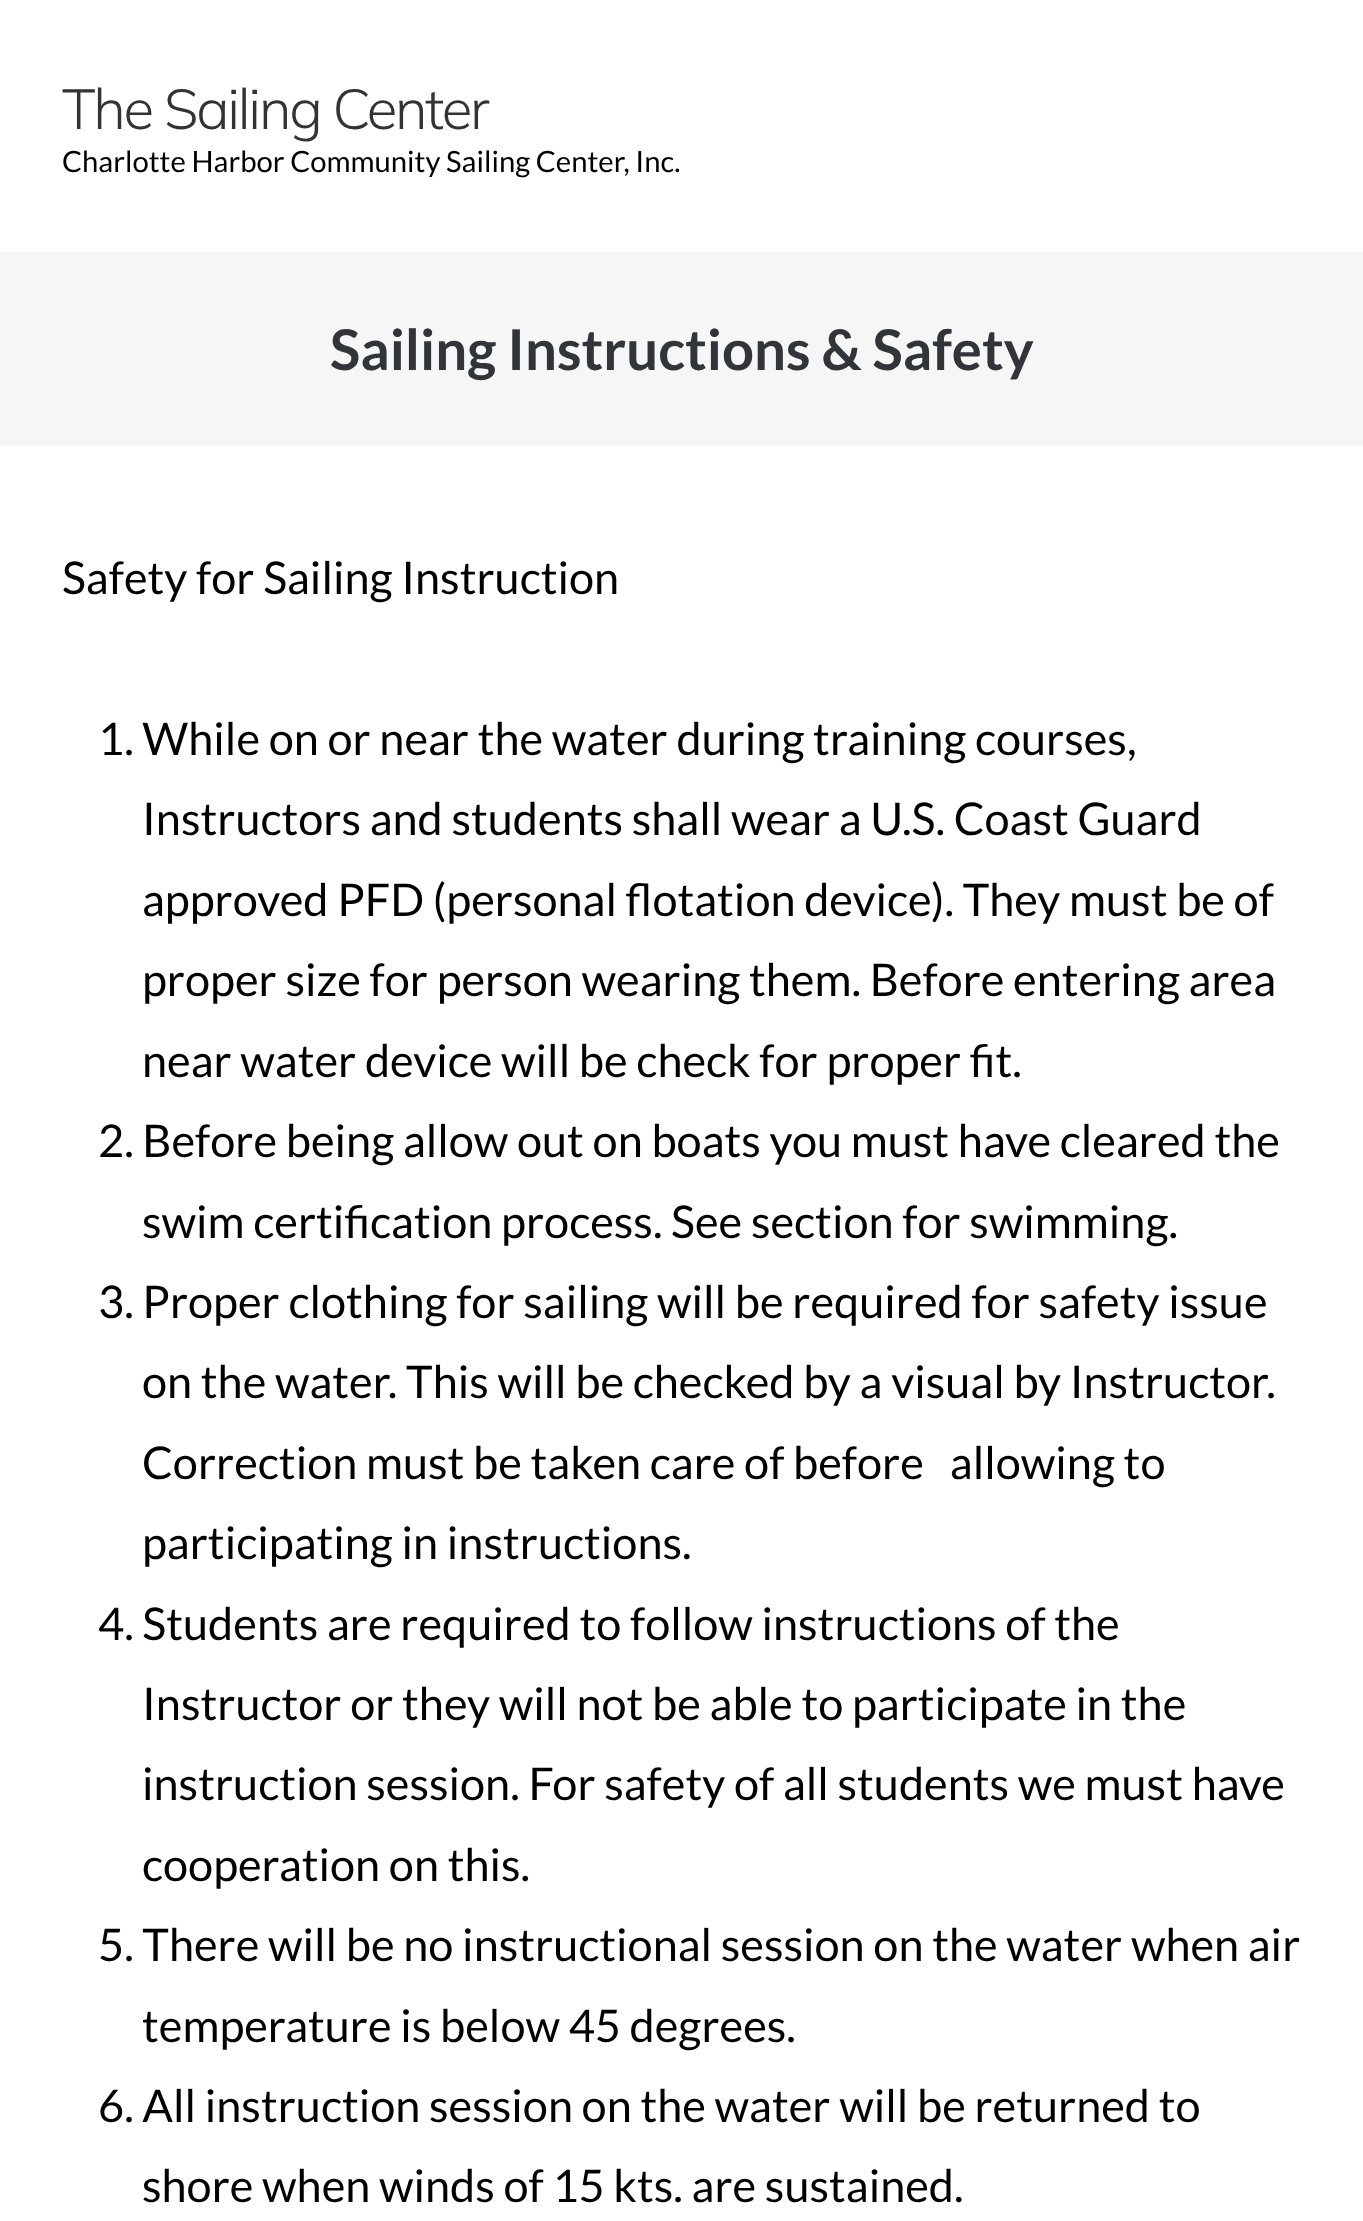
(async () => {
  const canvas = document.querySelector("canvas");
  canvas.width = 1363;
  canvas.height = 2221;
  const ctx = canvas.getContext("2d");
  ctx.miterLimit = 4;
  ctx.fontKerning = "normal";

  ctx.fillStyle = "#ffffff";
  ctx.fillRect(0, 0, 1363, 2221);
  ctx.fillStyle = "#f6f6f7";
  ctx.fillRect(0, 252, 1363, 194);
  ctx.letterSpacing = "-2.25px";
  ctx.font = "200 56.25px Mulish";
  ctx.fillStyle = "#333333";
  ctx.fillText("The Sailing Center", 62, 129);
  ctx.letterSpacing = "0px";
  ctx.font = "29.25px Lato";
  ctx.fillStyle = "#000000";
  ctx.fillText("Charlotte Harbor Community Sailing Center, Inc.", 62, 172);
  ctx.font = "bold 56.25px Lato";
  ctx.fillStyle = "#313539";
  ctx.fillText("Sailing Instructions & Safety", 330, 370);
  ctx.font = "45.05px Lato";
  ctx.fillStyle = "#000000";
  for (const [text, x, y] of [
    ["Safety for Sailing Instruction", 62, 594],
    ["1. While on or near the water during training courses,", 98, 755],
    ["Instructors and students shall wear a U.S. Coast Guard", 142, 835],
    ["approved PFD (personal flotation device). They must be of", 142, 916],
    ["proper size for person wearing them. Before entering area", 142, 996],
    ["near water device will be check for proper fit.", 142, 1077],
    ["2. Before being allow out on boats you must have cleared the", 98, 1157],
    ["swim certification process. See section for swimming.", 142, 1238],
    ["3. Proper clothing for sailing will be required for safety issue", 98, 1318],
    ["on the water. This will be checked by a visual by Instructor.", 142, 1398],
    ["Correction must be taken care of before   allowing to", 142, 1479],
    ["participating in instructions.", 142, 1559],
    ["4. Students are required to follow instructions of the", 98, 1640],
    ["Instructor or they will not be able to participate in the", 142, 1720],
    ["instruction session. For safety of all students we must have", 142, 1800],
    ["cooperation on this.", 142, 1881],
    ["5. There will be no instructional session on the water when air", 98, 1961],
    ["temperature is below 45 degrees.", 142, 2042],
    ["6. All instruction session on the water will be returned to", 98, 2122],
    ["shore when winds of 15 kts. are sustained.", 142, 2202],
  ]) {
    ctx.fillText(text, x, y);
  }
})();
